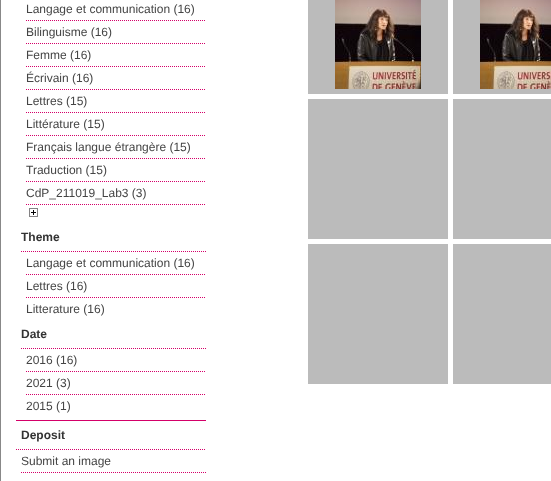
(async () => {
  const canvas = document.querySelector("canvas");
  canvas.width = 551;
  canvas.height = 481;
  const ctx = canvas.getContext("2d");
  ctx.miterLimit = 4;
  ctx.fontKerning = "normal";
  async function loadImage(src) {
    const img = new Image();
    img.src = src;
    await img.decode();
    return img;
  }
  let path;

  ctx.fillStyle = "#ffffff";
  ctx.fillRect(0, 0, 551, 481);
  ctx.fillStyle = "#888888";
  ctx.fillRect(0, 0, 1, 481);
  path = new Path2D("M26 20.5H206");
  ctx.strokeStyle = "#d40069";
  ctx.setLineDash([1, 1]);
  ctx.stroke(path);
  path = new Path2D("M26 43.5H206");
  ctx.stroke(path);
  path = new Path2D("M26 66.5H206");
  ctx.stroke(path);
  path = new Path2D("M26 89.5H206");
  ctx.stroke(path);
  path = new Path2D("M26 112.5H206");
  ctx.stroke(path);
  path = new Path2D("M26 135.5H206");
  ctx.stroke(path);
  path = new Path2D("M26 158.5H206");
  ctx.stroke(path);
  path = new Path2D("M26 181.5H206");
  ctx.stroke(path);
  path = new Path2D("M26 204.5H206");
  ctx.stroke(path);
  ctx.drawImage(await loadImage("img/1.png"), 29, 208, 9, 9);
  path = new Path2D("M21 251.5H206");
  ctx.stroke(path);
  path = new Path2D("M26 274.5H206");
  ctx.stroke(path);
  path = new Path2D("M26 297.5H206");
  ctx.stroke(path);
  path = new Path2D("M21 348.5H206");
  ctx.stroke(path);
  path = new Path2D("M26 371.5H206");
  ctx.stroke(path);
  path = new Path2D("M26 394.5H206");
  ctx.stroke(path);
  ctx.fillStyle = "#d40069";
  ctx.fillRect(16, 420, 190, 1);
  path = new Path2D("M16 449.5H206");
  ctx.stroke(path);
  path = new Path2D("M21 472.5H206");
  ctx.stroke(path);
  ctx.fillStyle = "#bbbbbb";
  ctx.fillRect(308, 0, 140, 94);
  ctx.drawImage(await loadImage("img/2.png"), 335, 0, 86, 89);
  ctx.fillRect(453, 0, 98, 94);
  ctx.drawImage(await loadImage("img/3.png"), 480, 0, 71, 89);
  for (const [x, y, w, h, color] of [
    [308, 99, 140, 140, "#bbbbbb"],
    [453, 99, 98, 140, "#bbbbbb"],
    [308, 244, 140, 140, "#bbbbbb"],
    [453, 244, 98, 140, "#bbbbbb"],
  ]) {
    ctx.fillStyle = color;
    ctx.fillRect(x, y, w, h);
  }
  ctx.font = "12px Liberation Sans";
  ctx.fillStyle = "#454545";
  for (const [text, x, y] of [
    ["Langage et communication (16)", 26, 13],
    ["Bilinguisme (16)", 26, 36],
    ["Femme (16)", 26, 59],
    ["Écrivain (16)", 26, 82],
    ["Lettres (15)", 26, 105],
    ["Littérature (15)", 26, 128],
    ["Français langue étrangère (15)", 26, 151],
    ["Traduction (15)", 26, 174],
    ["CdP_211019_Lab3 (3)", 26, 197],
  ]) {
    ctx.fillText(text, x, y);
  }
  ctx.font = "bold 12px Liberation Sans";
  ctx.fillStyle = "#333333";
  ctx.fillText("Theme", 21, 241);
  ctx.font = "12px Liberation Sans";
  ctx.fillStyle = "#454545";
  for (const [text, x, y] of [
    ["Langage et communication (16)", 26, 267],
    ["Lettres (16)", 26, 290],
    ["Litterature (16)", 26, 313],
  ]) {
    ctx.fillText(text, x, y);
  }
  ctx.font = "bold 12px Liberation Sans";
  ctx.fillStyle = "#333333";
  ctx.fillText("Date", 21, 338);
  ctx.font = "12px Liberation Sans";
  ctx.fillStyle = "#454545";
  for (const [text, x, y] of [
    ["2016 (16)", 26, 364],
    ["2021 (3)", 26, 387],
    ["2015 (1)", 26, 410],
  ]) {
    ctx.fillText(text, x, y);
  }
  ctx.font = "bold 12px Liberation Sans";
  ctx.fillStyle = "#333333";
  ctx.fillText("Deposit", 21, 439);
  ctx.font = "12px Liberation Sans";
  ctx.fillStyle = "#454545";
  ctx.fillText("Submit an image", 21, 465);
})();
